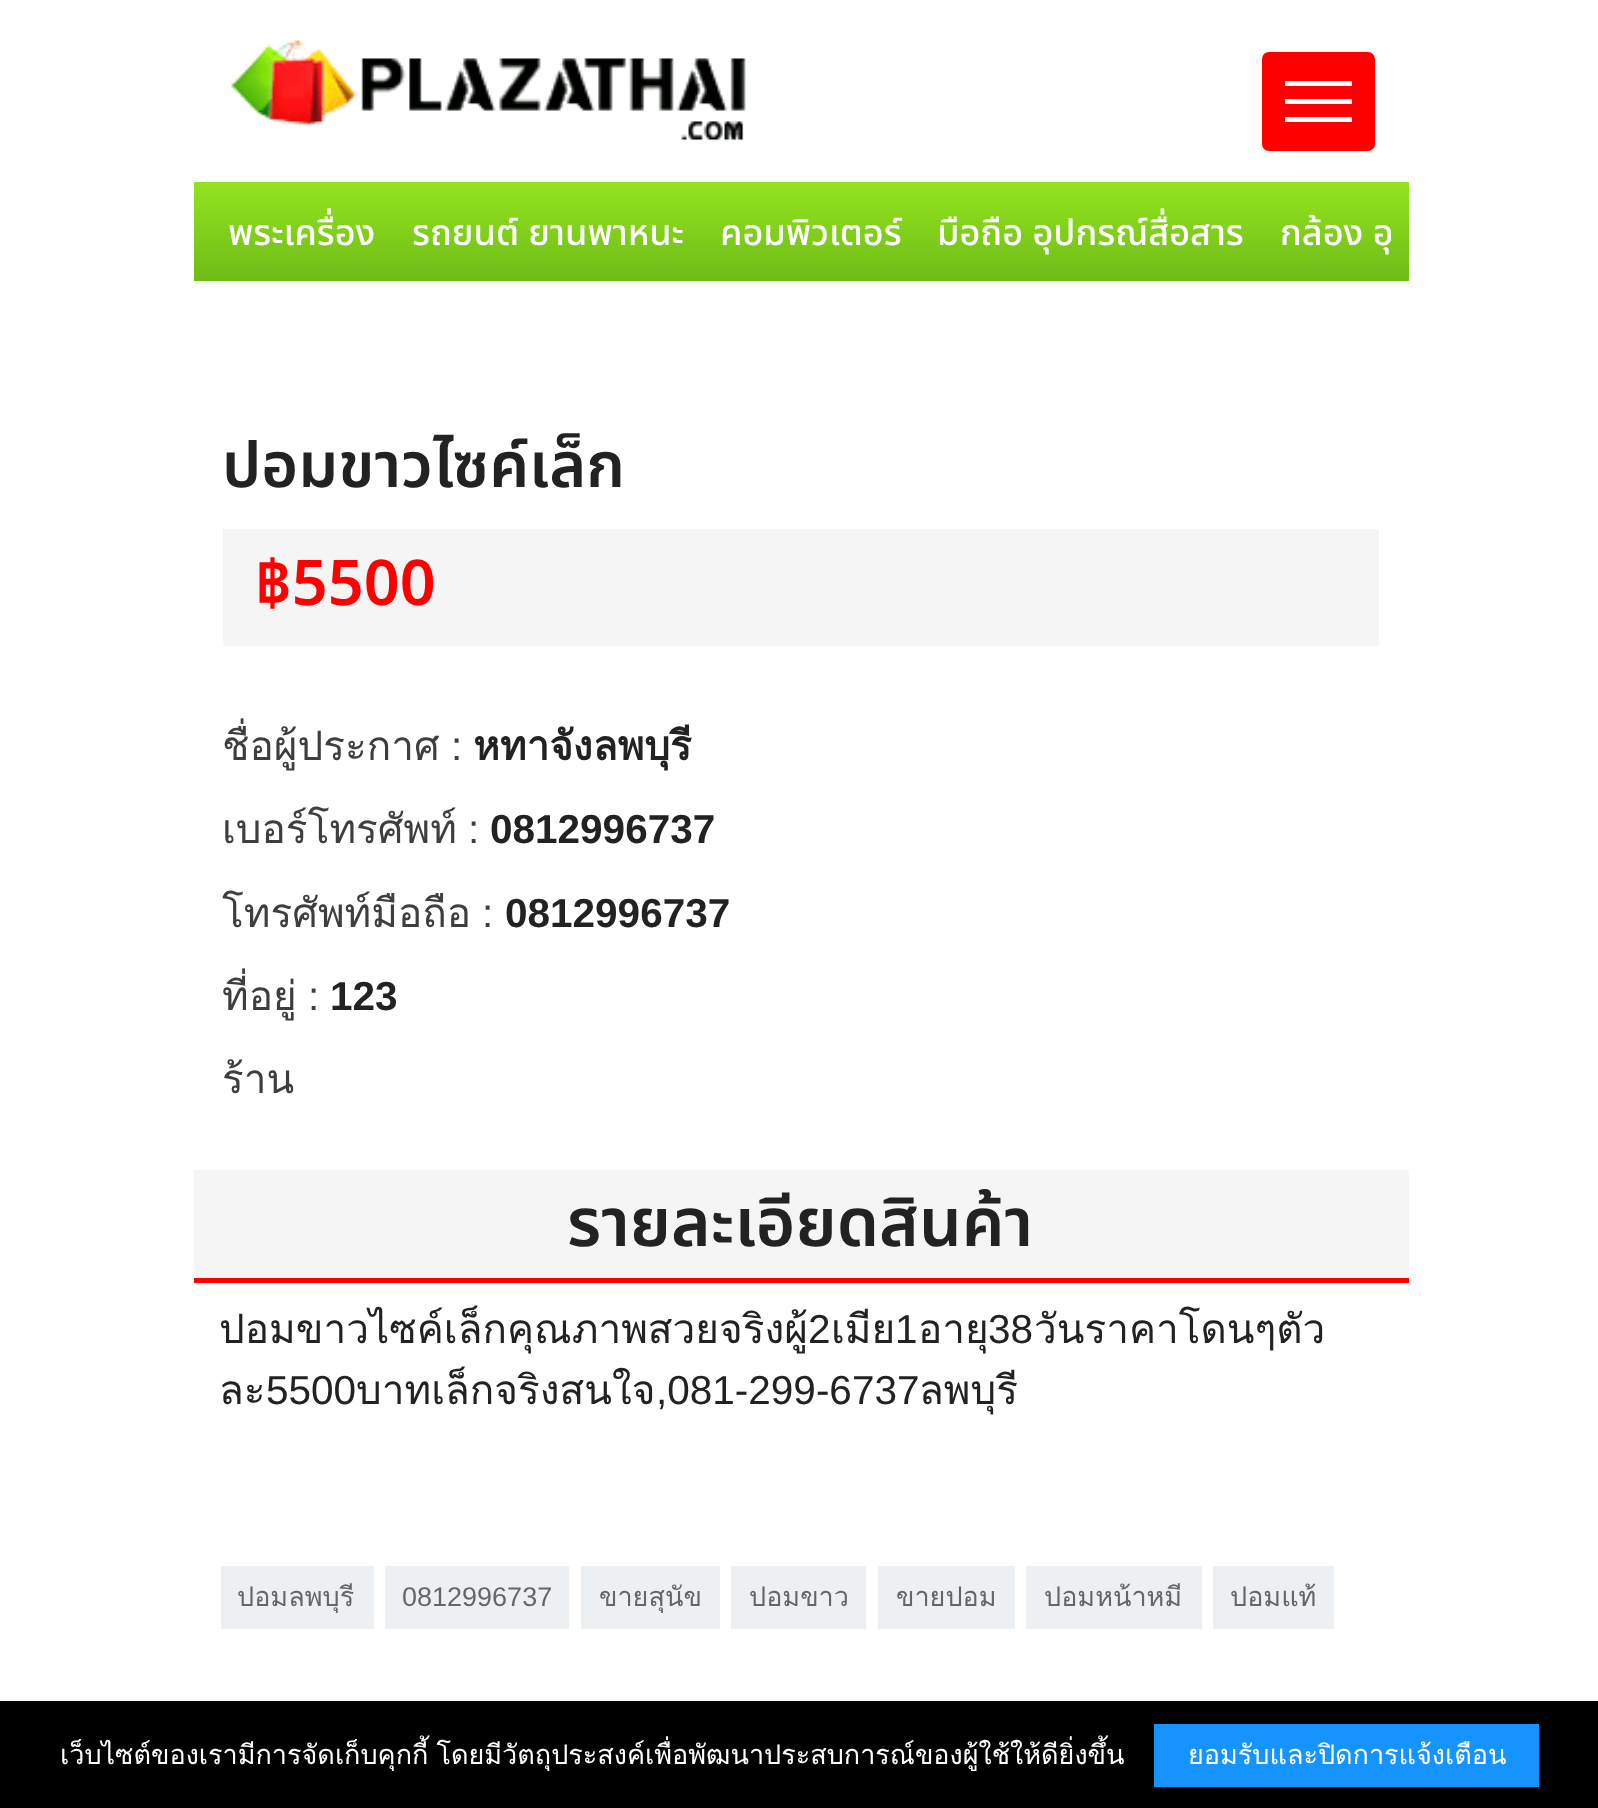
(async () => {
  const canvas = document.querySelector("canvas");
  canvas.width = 1598;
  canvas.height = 1808;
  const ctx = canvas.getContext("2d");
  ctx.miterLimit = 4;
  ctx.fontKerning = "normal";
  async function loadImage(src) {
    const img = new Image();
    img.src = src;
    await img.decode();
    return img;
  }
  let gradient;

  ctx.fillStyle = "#ffffff";
  ctx.fillRect(0, 0, 1598, 1808);
  ctx.drawImage(await loadImage("img/1.png"), 231, 40, 515, 101);
  ctx.fillStyle = "#ff0000";
  ctx.beginPath();
  ctx.roundRect(1262, 52, 113, 99, 7);
  ctx.fill();
  for (const [x, y, w, h, color] of [
    [1285, 81, 67, 5, "#ffffff"],
    [1285, 99, 67, 5, "#ffffff"],
    [1285, 117, 67, 5, "#ffffff"],
  ]) {
    ctx.fillStyle = color;
    ctx.fillRect(x, y, w, h);
  }
  gradient = ctx.createLinearGradient(801, 182, 801, 281);
  gradient.addColorStop(0, "#93e41f");
  gradient.addColorStop(1, "#6ebc17");
  ctx.fillStyle = gradient;
  ctx.fillRect(194, 182, 1215, 99);
  for (const [x, y, w, h, color] of [
    [223, 529, 1156, 117, "#f5f5f5"],
    [194, 1170, 1215, 108, "#f5f5f5"],
    [194, 1278, 1215, 5, "#ff0000"],
    [221, 1566, 153, 63, "#edf0f2"],
    [385, 1566, 184, 63, "#edf0f2"],
    [581, 1566, 139, 63, "#edf0f2"],
    [731, 1566, 135, 63, "#edf0f2"],
    [878, 1566, 137, 63, "#edf0f2"],
    [1026, 1566, 176, 63, "#edf0f2"],
    [1213, 1566, 121, 63, "#edf0f2"],
    [0, 1701, 1598, 107, "#000000"],
    [1154, 1724, 385, 63, "#1594ff"],
  ]) {
    ctx.fillStyle = color;
    ctx.fillRect(x, y, w, h);
  }
  ctx.font = "500 36px Noto Sans Thai";
  ctx.fillStyle = "#ffffff";
  for (const [text, x, y] of [
    ["พระเครื่อง", 228, 245],
    ["รถยนต์ ยานพาหนะ", 412, 245],
    ["คอมพิวเตอร์", 720, 245],
    ["มือถือ อุปกรณ์สื่อสาร", 937, 245],
  ]) {
    ctx.fillText(text, x, y);
  }
  ctx.save();
  ctx.beginPath();
  ctx.rect(212, 189, 1179, 92);
  ctx.clip();
  ctx.fillText("กล้อง อุ", 1280, 245);
  ctx.restore();
  ctx.font = "600 63px Noto Sans Thai";
  ctx.fillStyle = "#222222";
  ctx.fillText("ปอมขาวไซค์เล็ก", 222, 487);
  ctx.fillStyle = "#ff0000";
  ctx.fillText("฿5500", 255, 605);
  ctx.font = "40.5px Loma";
  ctx.fillStyle = "#3e3e3e";
  ctx.fillText("ชื่อผู้ประกาศ", 222, 760);
  ctx.font = "40.5px Liberation Sans";
  ctx.fillText(":", 451, 760);
  ctx.font = "bold 40.5px Loma";
  ctx.fillStyle = "#222222";
  ctx.fillText("หทาจังลพบุรี", 473, 760);
  ctx.font = "40.5px Loma";
  ctx.fillStyle = "#3e3e3e";
  ctx.fillText("เบอร์โทรศัพท์", 222, 843);
  ctx.font = "40.5px Liberation Sans";
  ctx.fillText(":", 468, 843);
  ctx.font = "bold 40.5px Liberation Sans";
  ctx.fillStyle = "#222222";
  ctx.fillText("0812996737", 490, 843);
  ctx.font = "40.5px Loma";
  ctx.fillStyle = "#3e3e3e";
  ctx.fillText("โทรศัพท์มือถือ", 222, 927);
  ctx.font = "40.5px Liberation Sans";
  ctx.fillText(":", 482, 927);
  ctx.font = "bold 40.5px Liberation Sans";
  ctx.fillStyle = "#222222";
  ctx.fillText("0812996737", 505, 927);
  ctx.font = "40.5px Loma";
  ctx.fillStyle = "#3e3e3e";
  ctx.fillText("ที่อยู่", 222, 1010);
  ctx.font = "40.5px Liberation Sans";
  ctx.fillText(":", 308, 1010);
  ctx.font = "bold 40.5px Liberation Sans";
  ctx.fillStyle = "#222222";
  ctx.fillText("123", 330, 1010);
  ctx.font = "40.5px Loma";
  ctx.fillStyle = "#3e3e3e";
  ctx.fillText("ร้าน", 222, 1093);
  ctx.font = "600 67.5px Noto Sans Thai";
  ctx.fillStyle = "#222222";
  ctx.fillText("รายละเอียดสินค้า", 567, 1246);
  ctx.font = "40.5px Loma";
  ctx.fillText("ปอมขาวไซค์เล็กคุณภาพสวยจริงผู้", 219, 1343);
  ctx.font = "40.5px Liberation Sans";
  ctx.fillText("2", 808, 1343);
  ctx.font = "40.5px Loma";
  ctx.fillText("เมีย", 831, 1343);
  ctx.font = "40.5px Liberation Sans";
  ctx.fillText("1", 895, 1343);
  ctx.font = "40.5px Loma";
  ctx.fillText("อายุ", 918, 1343);
  ctx.font = "40.5px Liberation Sans";
  ctx.fillText("38", 988, 1343);
  ctx.font = "40.5px Loma";
  ctx.fillText("วันราคาโดนๆตัว", 1034, 1343);
  ctx.fillText("ละ", 219, 1404);
  ctx.font = "40.5px Liberation Sans";
  ctx.fillText("5500", 266, 1404);
  ctx.font = "40.5px Loma";
  ctx.fillText("บาทเล็กจริงสนใจ", 356, 1404);
  ctx.font = "40.5px Liberation Sans";
  ctx.fillText(",081-299-6737", 656, 1404);
  ctx.font = "40.5px Loma";
  ctx.fillText("ลพบุรี", 919, 1404);
  ctx.font = "27px Loma";
  ctx.fillStyle = "#666666";
  ctx.fillText("ปอมลพบุรี", 237, 1606);
  ctx.font = "27px Liberation Sans";
  ctx.fillText("0812996737", 402, 1606);
  ctx.font = "27px Loma";
  for (const [text, x, y] of [
    ["ขายสุนัข", 599, 1606],
    ["ปอมขาว", 749, 1606],
    ["ขายปอม", 896, 1606],
    ["ปอมหน้าหมี", 1044, 1606],
    ["ปอมแท้", 1230, 1606],
  ]) {
    ctx.fillText(text, x, y);
  }
  ctx.wordSpacing = "-1px";
  ctx.fillStyle = "#ffffff";
  ctx.fillText("เว็บไซต์ของเรามีการจัดเก็บคุกกี้ โดยมีวัตถุประสงค์เพื่อพัฒนาประสบการณ์ของผู้ใช้ให้ดียิ่งขึ้น", 60, 1764);
  ctx.wordSpacing = "0px";
  ctx.fillText("ยอมรับและปิดการแจ้งเตือน", 1188, 1764);
})();
